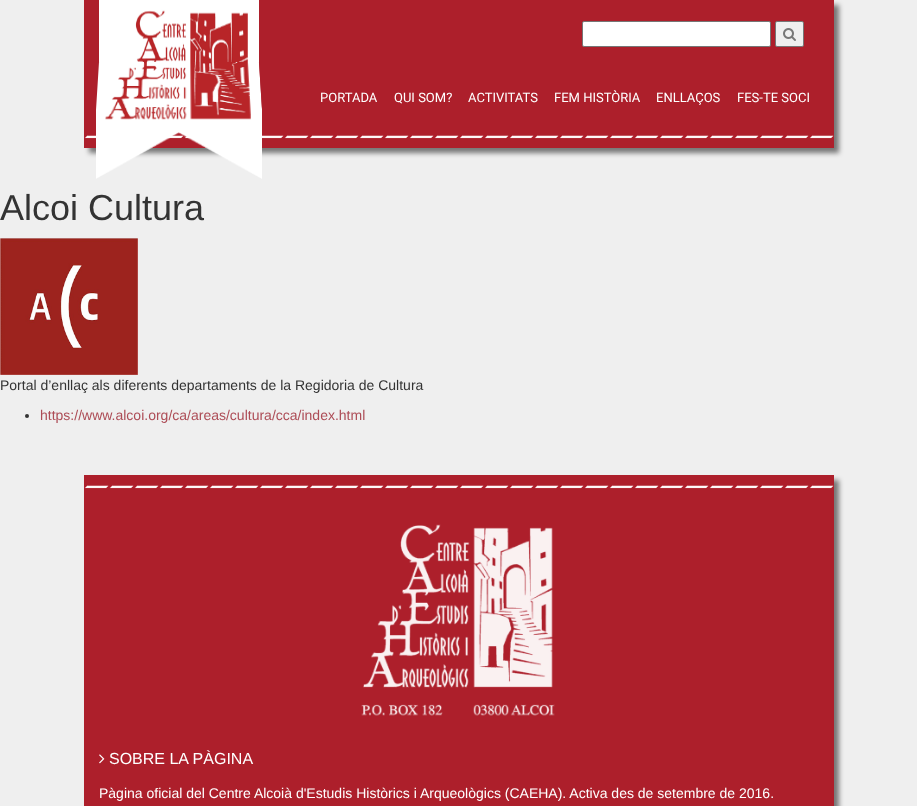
(async () => {
  const canvas = document.querySelector("canvas");
  canvas.width = 917;
  canvas.height = 806;
  const ctx = canvas.getContext("2d");
  ctx.miterLimit = 4;
  ctx.fontKerning = "normal";
  async function loadImage(src) {
    const img = new Image();
    img.src = src;
    await img.decode();
    return img;
  }

  ctx.fillStyle = "#efefef";
  ctx.fillRect(0, 0, 917, 806);
  ctx.fillStyle = "rgba(0, 0, 0, 0.5)";
  ctx.filter = "blur(2.5px)";
  ctx.beginPath();
  ctx.rect(89, 5, 750, 148);
  ctx.fill();
  ctx.filter = "none";
  ctx.fillStyle = "#ad1f2b";
  ctx.fillRect(84, 0, 750, 148);
  ctx.drawImage(await loadImage("img/1.png"), 99, 0, 160, 62);
  ctx.drawImage(await loadImage("img/2.png"), 96, 62, 166, 52);
  ctx.drawImage(await loadImage("img/5.png"), 84, 135, 750, 4);
  ctx.drawImage(await loadImage("img/3.png"), 96, 114, 166, 65);
  ctx.fillStyle = "#ffffff";
  ctx.beginPath();
  ctx.roundRect(582.5, 21.5, 188, 25, 1.5);
  ctx.fill();
  ctx.strokeStyle = "#767676";
  ctx.stroke();
  ctx.fillStyle = "#efefef";
  ctx.beginPath();
  ctx.roundRect(775.5, 21.5, 28, 25, 1.5);
  ctx.fill();
  ctx.stroke();
  ctx.drawImage(await loadImage("img/4.png"), 783, 28, 13, 13);
  ctx.drawImage(await loadImage("img/6.png"), 0, 238, 138, 137);
  ctx.fillStyle = "#333333";
  ctx.beginPath();
  ctx.arc(27, 416, 2, 0, Math.PI * 2);
  ctx.fill();
  ctx.fillStyle = "rgba(0, 0, 0, 0.5)";
  ctx.filter = "blur(2.5px)";
  ctx.beginPath();
  ctx.rect(89, 480, 750, 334);
  ctx.fill();
  ctx.filter = "none";
  ctx.fillStyle = "#ad1f2b";
  ctx.fillRect(84, 475, 750, 331);
  ctx.drawImage(await loadImage("img/7.png"), 84, 485, 750, 4);
  ctx.drawImage(await loadImage("img/8.png"), 361, 524, 194, 192);
  ctx.drawImage(await loadImage("img/9.png"), 99, 754, 6, 10);
  ctx.font = "13px Roboto";
  ctx.fillStyle = "#ffffff";
  for (const [text, x, y] of [
    ["PORTADA", 320, 102],
    ["QUI SOM?", 394, 102],
    ["ACTIVITATS", 468, 102],
    ["FEM HISTÒRIA", 554, 102],
    ["ENLLAÇOS", 656, 102],
    ["FES-TE SOCI", 737, 102],
  ]) {
    ctx.fillText(text, x, y);
  }
  ctx.font = "36px Liberation Sans";
  ctx.fillStyle = "#333333";
  ctx.fillText("Alcoi Cultura", 0, 220);
  ctx.font = "14px Liberation Sans";
  ctx.fillText("Portal d’enllaç als diferents departaments de la Regidoria de Cultura", 0, 390);
  ctx.fillStyle = "#ad4c56";
  ctx.fillText("https://www.alcoi.org/ca/areas/cultura/cca/index.html", 40, 420);
  ctx.font = "16px Liberation Sans";
  ctx.fillStyle = "#ffffff";
  ctx.fillText("SOBRE LA PÀGINA", 109, 764);
  ctx.font = "14px Liberation Sans";
  ctx.fillText("Pàgina oficial del Centre Alcoià d'Estudis Històrics i Arqueològics (CAEHA). Activa des de setembre de 2016.", 99, 798);
})();
